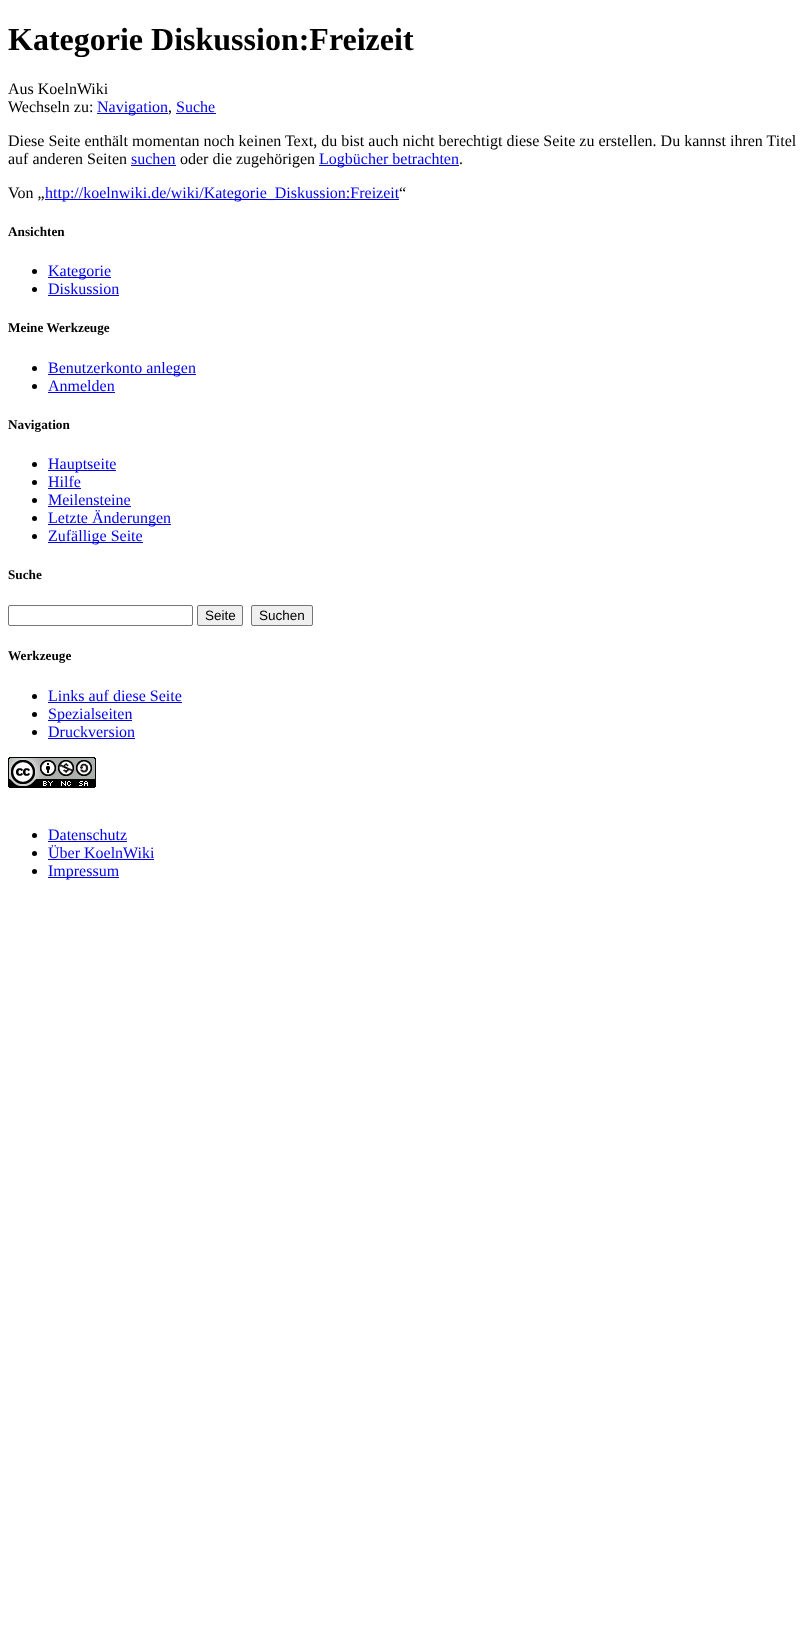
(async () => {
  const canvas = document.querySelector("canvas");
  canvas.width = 809;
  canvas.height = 1643;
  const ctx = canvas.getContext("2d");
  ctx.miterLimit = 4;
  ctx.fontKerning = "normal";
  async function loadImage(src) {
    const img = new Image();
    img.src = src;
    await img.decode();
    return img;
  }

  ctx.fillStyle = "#ffffff";
  ctx.fillRect(0, 0, 809, 1643);
  for (const [x, y, w, h, color] of [
    [97, 113, 71, 1, "#0000ee"],
    [176, 113, 40, 1, "#0000ee"],
    [131, 165, 45, 1, "#0000ee"],
    [319, 165, 140, 1, "#0000ee"],
    [45, 199, 354, 1, "#0000ee"],
  ]) {
    ctx.fillStyle = color;
    ctx.fillRect(x, y, w, h);
  }
  ctx.fillStyle = "#000000";
  ctx.beginPath();
  ctx.arc(34.5, 271.5, 2.5, 0, Math.PI * 2);
  ctx.fill();
  ctx.fillStyle = "#0000ee";
  ctx.fillRect(48, 277, 63, 1);
  ctx.fillStyle = "#000000";
  ctx.beginPath();
  ctx.arc(34.5, 289.5, 2.5, 0, Math.PI * 2);
  ctx.fill();
  ctx.fillStyle = "#0000ee";
  ctx.fillRect(48, 295, 71, 1);
  ctx.fillStyle = "#000000";
  ctx.beginPath();
  ctx.arc(34.5, 368.5, 2.5, 0, Math.PI * 2);
  ctx.fill();
  ctx.fillStyle = "#0000ee";
  ctx.fillRect(48, 374, 148, 1);
  ctx.fillStyle = "#000000";
  ctx.beginPath();
  ctx.arc(34.5, 386.5, 2.5, 0, Math.PI * 2);
  ctx.fill();
  ctx.fillStyle = "#0000ee";
  ctx.fillRect(48, 392, 67, 1);
  ctx.fillStyle = "#000000";
  ctx.beginPath();
  ctx.arc(34.5, 464.5, 2.5, 0, Math.PI * 2);
  ctx.fill();
  ctx.fillStyle = "#0000ee";
  ctx.fillRect(48, 470, 68, 1);
  ctx.fillStyle = "#000000";
  ctx.beginPath();
  ctx.arc(34.5, 482.5, 2.5, 0, Math.PI * 2);
  ctx.fill();
  ctx.fillStyle = "#0000ee";
  ctx.fillRect(48, 488, 33, 1);
  ctx.fillStyle = "#000000";
  ctx.beginPath();
  ctx.arc(34.5, 500.5, 2.5, 0, Math.PI * 2);
  ctx.fill();
  ctx.fillStyle = "#0000ee";
  ctx.fillRect(48, 506, 83, 1);
  ctx.fillStyle = "#000000";
  ctx.beginPath();
  ctx.arc(34.5, 518.5, 2.5, 0, Math.PI * 2);
  ctx.fill();
  ctx.fillStyle = "#0000ee";
  ctx.fillRect(48, 524, 123, 1);
  ctx.fillStyle = "#000000";
  ctx.beginPath();
  ctx.arc(34.5, 536.5, 2.5, 0, Math.PI * 2);
  ctx.fill();
  ctx.fillStyle = "#0000ee";
  ctx.fillRect(48, 542, 95, 1);
  ctx.beginPath();
  ctx.roundRect(8.5, 605.5, 184, 20, 1.5);
  ctx.strokeStyle = "#767676";
  ctx.stroke();
  ctx.fillStyle = "#efefef";
  ctx.beginPath();
  ctx.roundRect(197.5, 605.5, 45, 20, 1.5);
  ctx.fill();
  ctx.stroke();
  ctx.beginPath();
  ctx.roundRect(251.5, 605.5, 61, 20, 1.5);
  ctx.fill();
  ctx.stroke();
  ctx.fillStyle = "#000000";
  ctx.beginPath();
  ctx.arc(34.5, 696.5, 2.5, 0, Math.PI * 2);
  ctx.fill();
  ctx.fillStyle = "#0000ee";
  ctx.fillRect(48, 702, 134, 1);
  ctx.fillStyle = "#000000";
  ctx.beginPath();
  ctx.arc(34.5, 714.5, 2.5, 0, Math.PI * 2);
  ctx.fill();
  ctx.fillStyle = "#0000ee";
  ctx.fillRect(48, 720, 84, 1);
  ctx.fillStyle = "#000000";
  ctx.beginPath();
  ctx.arc(34.5, 732.5, 2.5, 0, Math.PI * 2);
  ctx.fill();
  ctx.fillStyle = "#0000ee";
  ctx.fillRect(48, 738, 87, 1);
  ctx.drawImage(await loadImage("img/1.png"), 8, 757, 88, 31);
  ctx.fillStyle = "#000000";
  ctx.beginPath();
  ctx.arc(34.5, 835.5, 2.5, 0, Math.PI * 2);
  ctx.fill();
  ctx.fillStyle = "#0000ee";
  ctx.fillRect(48, 841, 79, 1);
  ctx.fillStyle = "#000000";
  ctx.beginPath();
  ctx.arc(34.5, 853.5, 2.5, 0, Math.PI * 2);
  ctx.fill();
  ctx.fillStyle = "#0000ee";
  ctx.fillRect(48, 859, 106, 1);
  ctx.fillStyle = "#000000";
  ctx.beginPath();
  ctx.arc(34.5, 871.5, 2.5, 0, Math.PI * 2);
  ctx.fill();
  ctx.fillStyle = "#0000ee";
  ctx.fillRect(48, 877, 71, 1);
  ctx.font = "bold 32px Liberation Serif";
  ctx.fillStyle = "#000000";
  ctx.fillText("Kategorie Diskussion:Freizeit", 8, 50);
  ctx.font = "16px Liberation Serif";
  ctx.fillText("Aus KoelnWiki", 8, 94);
  ctx.fillText("Wechseln zu:", 8, 112);
  ctx.fillStyle = "#0000ee";
  ctx.fillText("Navigation", 97, 112);
  ctx.fillStyle = "#000000";
  ctx.fillText(",", 168, 112);
  ctx.fillStyle = "#0000ee";
  ctx.fillText("Suche", 176, 112);
  ctx.fillStyle = "#000000";
  ctx.fillText("Diese Seite enthält momentan noch keinen Text, du bist auch nicht berechtigt diese Seite zu erstellen. Du kannst ihren Titel", 8, 146);
  ctx.fillText("auf anderen Seiten", 8, 164);
  ctx.fillStyle = "#0000ee";
  ctx.fillText("suchen", 131, 164);
  ctx.fillStyle = "#000000";
  ctx.fillText("oder die zugehörigen", 180, 164);
  ctx.fillStyle = "#0000ee";
  ctx.fillText("Logbücher betrachten", 319, 164);
  ctx.fillStyle = "#000000";
  ctx.fillText(".", 459, 164);
  ctx.fillText("Von „", 8, 198);
  ctx.fillStyle = "#0000ee";
  ctx.fillText("http://koelnwiki.de/wiki/Kategorie_Diskussion:Freizeit", 45, 198);
  ctx.fillStyle = "#000000";
  ctx.fillText("“", 399, 198);
  ctx.font = "bold 13.25px Liberation Serif";
  ctx.fillText("Ansichten", 8, 236);
  ctx.font = "16px Liberation Serif";
  ctx.fillStyle = "#0000ee";
  ctx.fillText("Kategorie", 48, 276);
  ctx.fillText("Diskussion", 48, 294);
  ctx.font = "bold 13.25px Liberation Serif";
  ctx.fillStyle = "#000000";
  ctx.fillText("Meine Werkzeuge", 8, 332);
  ctx.font = "16px Liberation Serif";
  ctx.fillStyle = "#0000ee";
  ctx.fillText("Benutzerkonto anlegen", 48, 373);
  ctx.fillText("Anmelden", 48, 391);
  ctx.font = "bold 13.25px Liberation Serif";
  ctx.fillStyle = "#000000";
  ctx.fillText("Navigation", 8, 429);
  ctx.font = "16px Liberation Serif";
  ctx.fillStyle = "#0000ee";
  for (const [text, x, y] of [
    ["Hauptseite", 48, 469],
    ["Hilfe", 48, 487],
    ["Meilensteine", 48, 505],
    ["Letzte Änderungen", 48, 523],
    ["Zufällige Seite", 48, 541],
  ]) {
    ctx.fillText(text, x, y);
  }
  ctx.font = "bold 13.25px Liberation Serif";
  ctx.fillStyle = "#000000";
  ctx.fillText("Suche", 8, 579);
  ctx.font = "13.5px Liberation Sans";
  ctx.fillText("Seite", 205, 620);
  ctx.fillText("Suchen", 259, 620);
  ctx.font = "bold 13.25px Liberation Serif";
  ctx.fillText("Werkzeuge", 8, 660);
  ctx.font = "16px Liberation Serif";
  ctx.fillStyle = "#0000ee";
  for (const [text, x, y] of [
    ["Links auf diese Seite", 48, 701],
    ["Spezialseiten", 48, 719],
    ["Druckversion", 48, 737],
    ["Datenschutz", 48, 840],
    ["Über KoelnWiki", 48, 858],
    ["Impressum", 48, 876],
  ]) {
    ctx.fillText(text, x, y);
  }
})();
